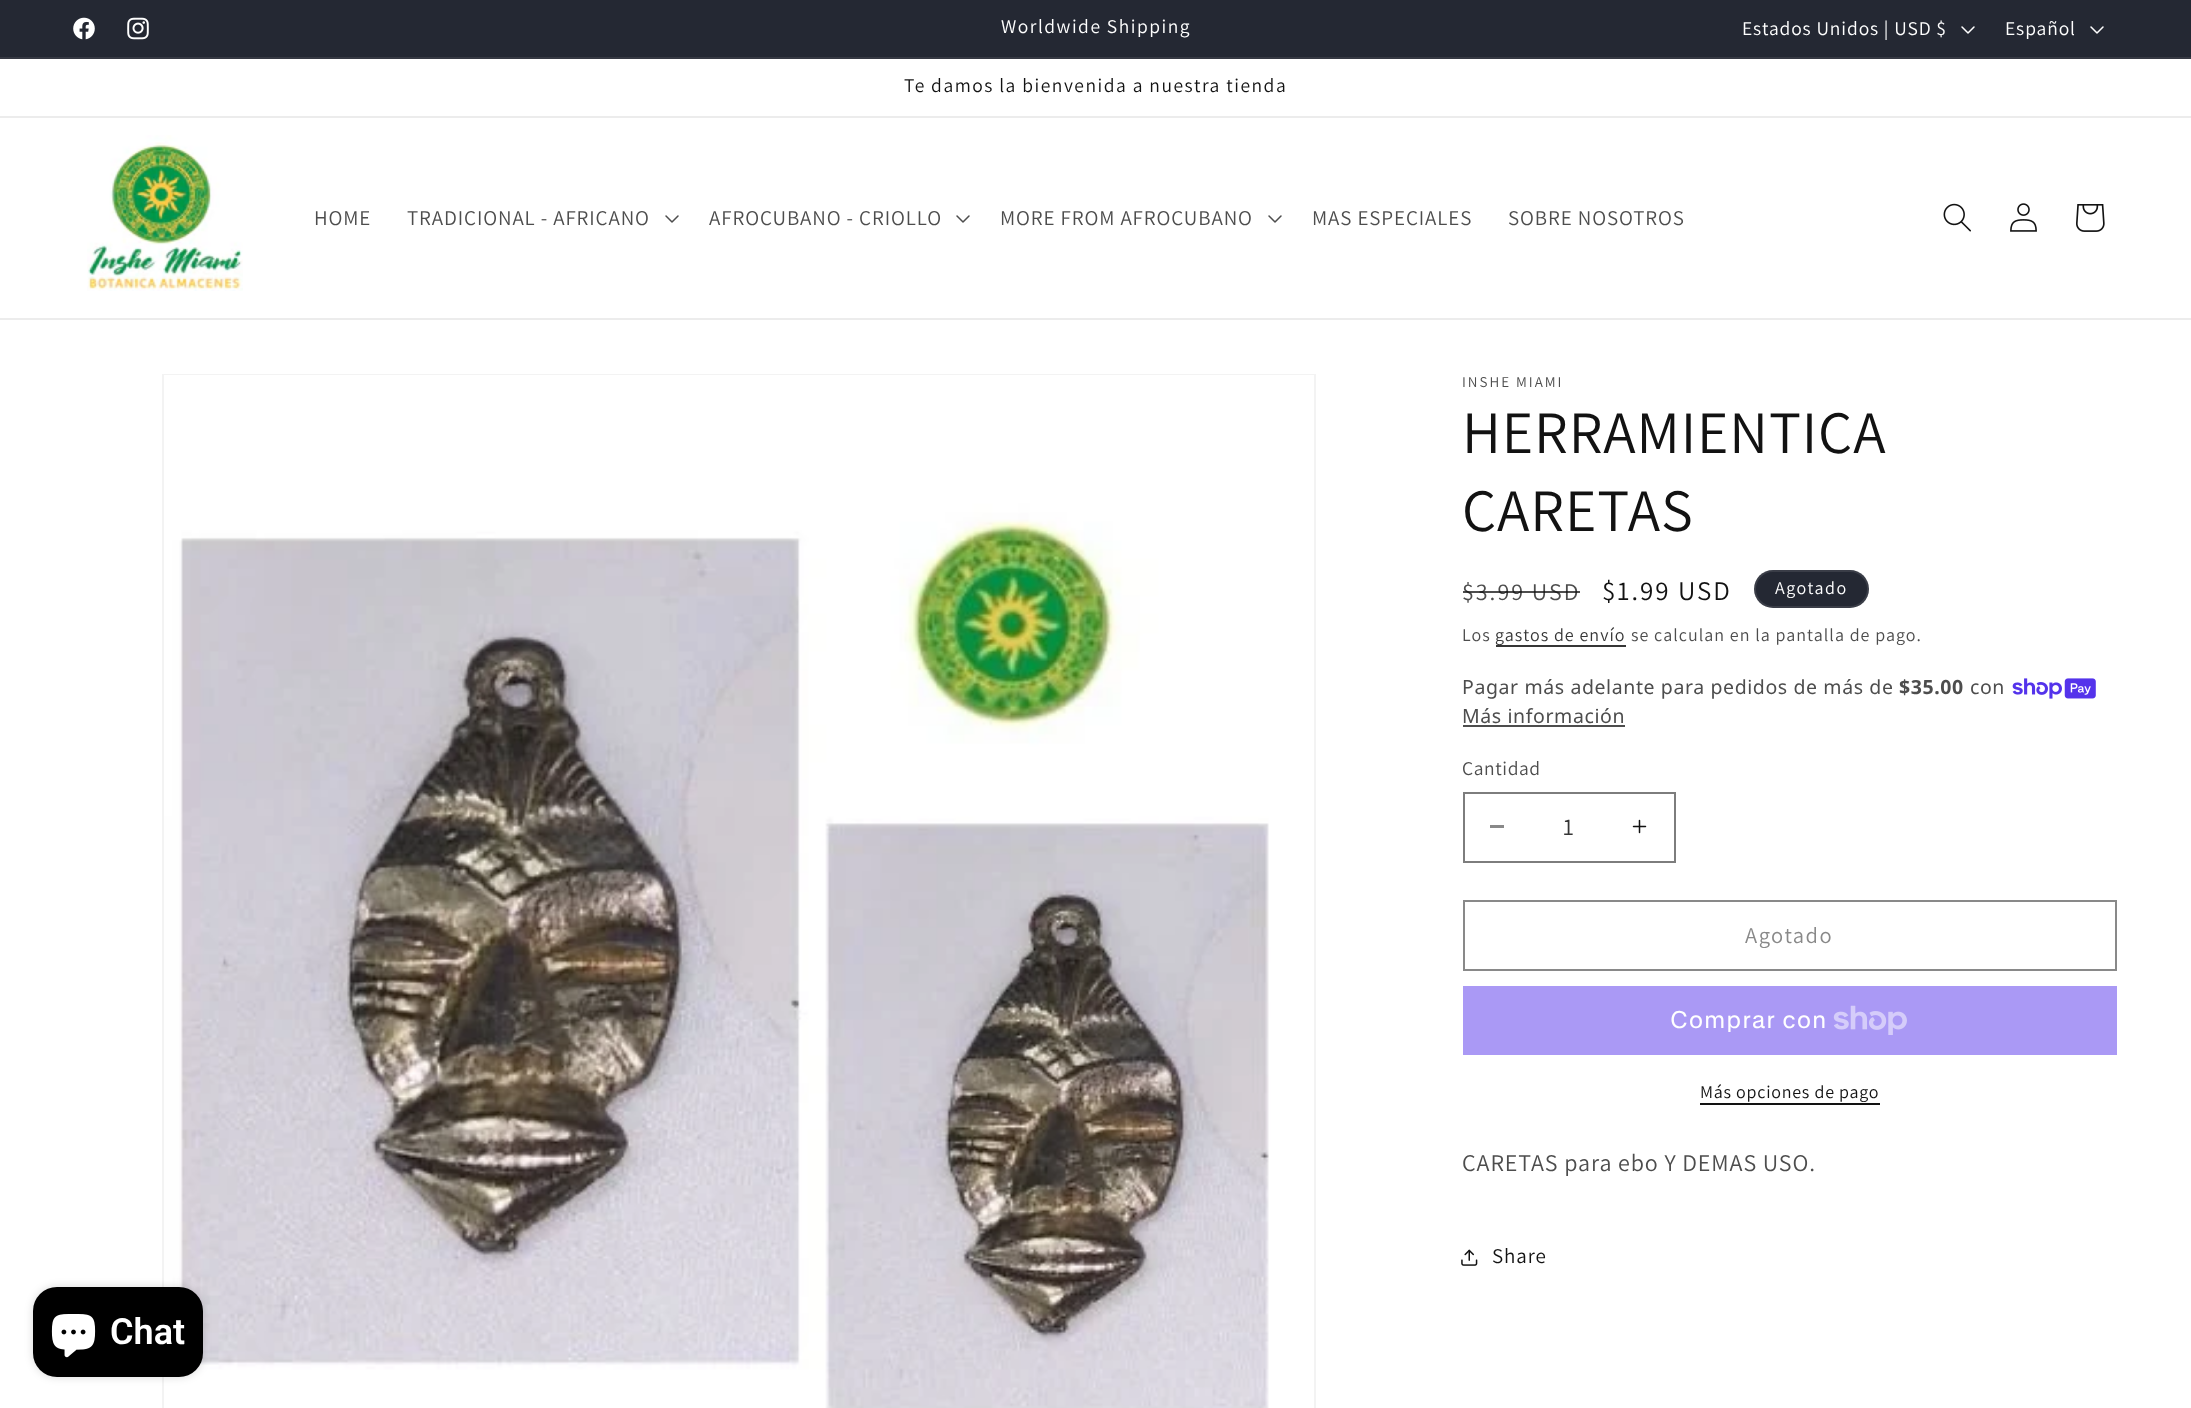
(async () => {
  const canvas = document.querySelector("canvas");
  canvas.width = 2191;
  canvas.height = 1408;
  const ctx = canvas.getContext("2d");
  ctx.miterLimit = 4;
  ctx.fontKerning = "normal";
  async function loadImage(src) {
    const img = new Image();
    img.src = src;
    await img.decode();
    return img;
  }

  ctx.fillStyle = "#ffffff";
  ctx.fillRect(0, 0, 2191, 1408);
  ctx.fillStyle = "#242833";
  ctx.fillRect(0, 0, 2191, 57);
  ctx.fillStyle = "#363943";
  ctx.fillRect(0, 57, 2191, 2);
  ctx.drawImage(await loadImage("img/1.png"), 73, 17, 22, 23);
  ctx.drawImage(await loadImage("img/2.png"), 127, 17, 22, 23);
  ctx.drawImage(await loadImage("img/3.png"), 1961, 26, 14, 8);
  ctx.drawImage(await loadImage("img/3.png"), 2090, 26, 14, 8);
  ctx.fillStyle = "#ececec";
  ctx.fillRect(0, 116, 2191, 2);
  ctx.fillRect(0, 318, 2191, 2);
  ctx.drawImage(await loadImage("img/4.png"), 87, 135, 156, 156);
  ctx.drawImage(await loadImage("img/5.png"), 665, 215, 14, 8);
  ctx.drawImage(await loadImage("img/5.png"), 956, 215, 14, 8);
  ctx.drawImage(await loadImage("img/5.png"), 1268, 215, 14, 8);
  ctx.drawImage(await loadImage("img/6.png"), 1943, 203, 28, 29);
  ctx.drawImage(await loadImage("img/7.png"), 2010, 203, 27, 29);
  ctx.drawImage(await loadImage("img/8.png"), 2076, 204, 29, 28);
  ctx.strokeStyle = "#f3f3f3";
  ctx.lineWidth = 2;
  ctx.strokeRect(163, 375, 1152, 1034);
  ctx.drawImage(await loadImage("img/9.png"), 164, 375, 1150, 1033);
  ctx.fillStyle = "#242833";
  ctx.beginPath();
  ctx.roundRect(1754, 570, 115, 38, 19);
  ctx.fill();
  ctx.beginPath();
  ctx.roundRect(1755, 571, 113, 36, 18);
  ctx.strokeStyle = "rgba(255, 255, 255, 0.1)";
  ctx.stroke();
  ctx.fillStyle = "#363636";
  ctx.fillRect(1496, 645, 130, 2);
  ctx.drawImage(await loadImage("img/10.png"), 2012, 678, 84, 21);
  ctx.fillStyle = "#4d4d4d";
  ctx.fillRect(1463, 725, 162, 2);
  ctx.fillStyle = "#898989";
  ctx.fillRect(1490, 825, 14, 3);
  ctx.drawImage(await loadImage("img/11.png"), 1632, 819, 15, 15);
  ctx.strokeStyle = "#7d7d7d";
  ctx.strokeRect(1464, 793, 211, 69);
  ctx.strokeStyle = "#898989";
  ctx.strokeRect(1464, 901, 652, 69);
  ctx.fillStyle = "#aa99f5";
  ctx.fillRect(1463, 986, 654, 69);
  ctx.drawImage(await loadImage("img/12.png"), 1833, 1005, 74, 30);
  ctx.fillStyle = "#121212";
  ctx.fillRect(1700, 1103, 180, 2);
  ctx.drawImage(await loadImage("img/13.png"), 1461, 1249, 17, 17);
  ctx.fillStyle = "rgba(0, 0, 0, 0.15)";
  ctx.filter = "blur(4px)";
  ctx.beginPath();
  ctx.roundRect(33, 1287, 170, 90, 24);
  ctx.fill();
  ctx.filter = "none";
  ctx.fillStyle = "#000000";
  ctx.beginPath();
  ctx.roundRect(33, 1287, 170, 90, 24);
  ctx.fill();
  ctx.drawImage(await loadImage("img/14.png"), 51, 1314, 45, 44);
  ctx.letterSpacing = "1.5px";
  ctx.font = "19.5px Assistant";
  ctx.fillStyle = "#ffffff";
  ctx.fillText("Worldwide Shipping", 1001, 33);
  ctx.letterSpacing = "0.9px";
  ctx.fillText("Estados Unidos | USD $", 1742, 35);
  ctx.fillText("Español", 2005, 35);
  ctx.letterSpacing = "1.5px";
  ctx.fillStyle = "#121212";
  ctx.fillText("Te damos la bienvenida a nuestra tienda", 904, 92);
  ctx.letterSpacing = "0.9px";
  ctx.font = "21px Assistant";
  ctx.fillStyle = "#4d4d4d";
  for (const [text, x, y] of [
    ["HOME", 314, 225],
    ["TRADICIONAL - AFRICANO", 407, 225],
    ["AFROCUBANO - CRIOLLO", 709, 225],
    ["MORE FROM AFROCUBANO", 1000, 225],
    ["MAS ESPECIALES", 1312, 225],
    ["SOBRE NOSOTROS", 1508, 225],
  ]) {
    ctx.fillText(text, x, y);
  }
  ctx.letterSpacing = "2px";
  ctx.font = "15px Assistant";
  ctx.fillText("INSHE MIAMI", 1462, 387);
  ctx.letterSpacing = "0.9px";
  ctx.font = "60px Assistant";
  ctx.fillStyle = "#121212";
  ctx.fillText("HERRAMIENTICA", 1462, 453);
  ctx.fillText("CARETAS", 1462, 531);
  ctx.letterSpacing = "2px";
  ctx.font = "24px Assistant";
  ctx.fillStyle = "#4d4d4d";
  ctx.fillText("$3.99 USD", 1462, 600);
  ctx.fillStyle = "rgba(18, 18, 18, 0.75)";
  ctx.fillRect(1463, 591, 117, 2);
  ctx.font = "27px Assistant";
  ctx.fillStyle = "#121212";
  ctx.fillText("$1.99 USD", 1602, 600);
  ctx.letterSpacing = "1.5px";
  ctx.font = "18px Assistant";
  ctx.fillStyle = "#ffffff";
  ctx.fillText("Agotado", 1775, 594);
  ctx.letterSpacing = "1.05px";
  ctx.fillStyle = "#4d4d4d";
  ctx.fillText("Los", 1462, 641);
  ctx.fillStyle = "#363636";
  ctx.fillText("gastos de envío", 1495, 641);
  ctx.fillStyle = "#4d4d4d";
  ctx.fillText("se calculan en la pantalla de pago.", 1631, 641);
  ctx.letterSpacing = "0.6px";
  ctx.font = "19.5px Noto Sans";
  ctx.fillText("Pagar más adelante para pedidos de más de", 1462, 694);
  ctx.font = "bold 19.5px Noto Sans";
  ctx.fillText("$35.00", 1899, 694);
  ctx.font = "19.5px Noto Sans";
  ctx.fillText("con", 1970, 694);
  ctx.fillText("Más información", 1462, 723);
  ctx.font = "19.5px Assistant";
  ctx.fillText("Cantidad", 1462, 775);
  ctx.letterSpacing = "0px";
  ctx.font = "24px Assistant";
  ctx.fillStyle = "#363636";
  ctx.fillText("1", 1563, 835);
  ctx.letterSpacing = "1.5px";
  ctx.font = "22.5px Assistant";
  ctx.fillStyle = "#898989";
  ctx.fillText("Agotado", 1745, 943);
  ctx.letterSpacing = "0.9px";
  ctx.font = "24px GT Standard";
  ctx.fillStyle = "#ffffff";
  ctx.fillText("Comprar con", 1670, 1028);
  ctx.letterSpacing = "0.75px";
  ctx.font = "18px Assistant";
  ctx.fillStyle = "#121212";
  ctx.fillText("Más opciones de pago", 1700, 1098);
  ctx.letterSpacing = "0.9px";
  ctx.font = "24px Assistant";
  ctx.fillStyle = "#4d4d4d";
  ctx.fillText("CARETAS para ebo Y DEMAS USO.", 1462, 1171);
  ctx.font = "21px Assistant";
  ctx.fillStyle = "#121212";
  ctx.fillText("Share", 1492, 1263);
  ctx.letterSpacing = "0px";
  ctx.font = "600 36px Roboto";
  ctx.fillStyle = "#ffffff";
  ctx.fillText("Chat", 110, 1344);
})();
